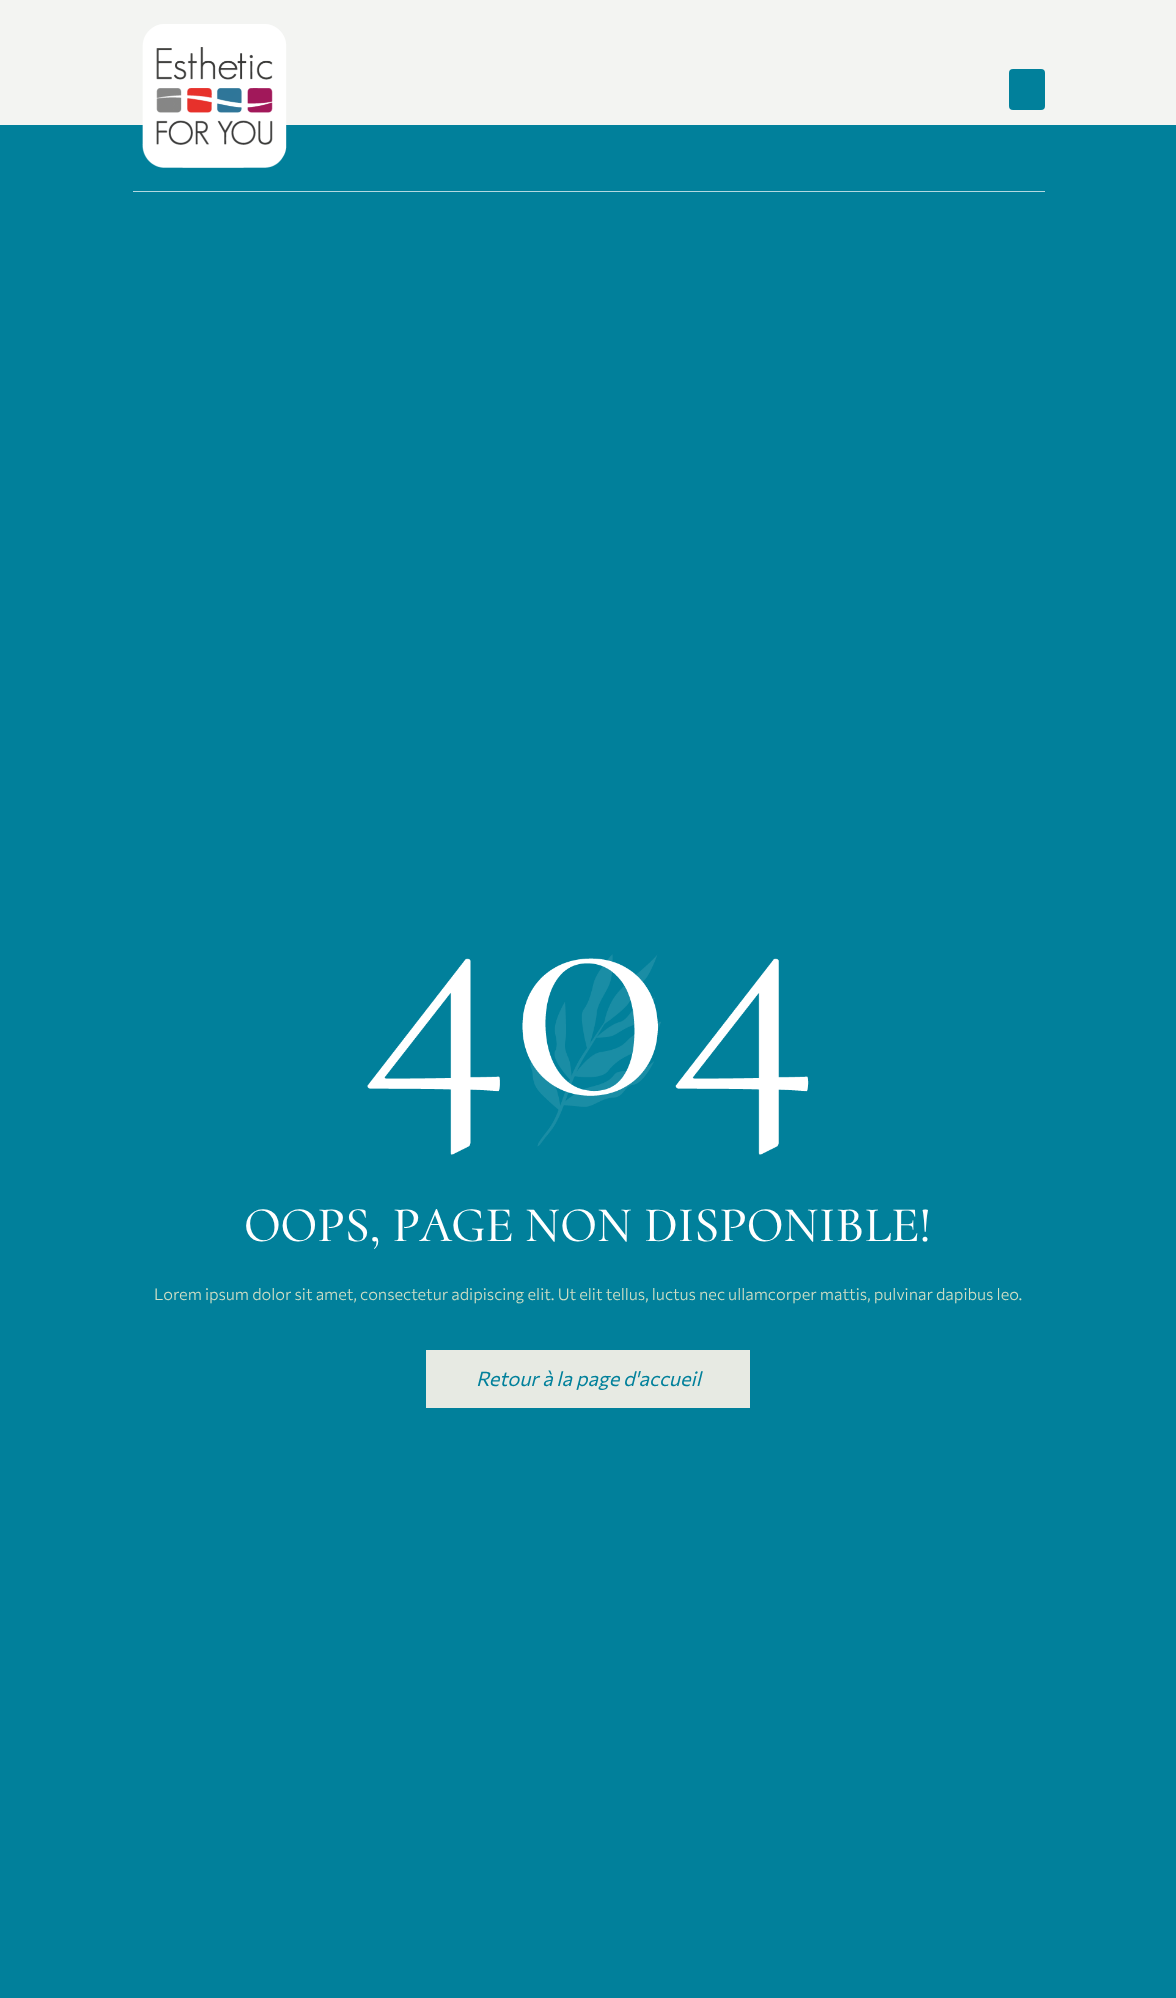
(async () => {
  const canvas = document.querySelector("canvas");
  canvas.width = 1176;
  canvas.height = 1998;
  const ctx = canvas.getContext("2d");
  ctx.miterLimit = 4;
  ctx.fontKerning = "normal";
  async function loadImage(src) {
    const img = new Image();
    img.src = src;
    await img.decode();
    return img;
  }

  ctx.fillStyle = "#f3f4f2";
  ctx.fillRect(0, 0, 1176, 1998);
  ctx.fillStyle = "#01809b";
  ctx.fillRect(0, 125, 1176, 1873);
  ctx.fillStyle = "#b3d9e1";
  ctx.fillRect(133, 191, 912, 1);
  ctx.drawImage(await loadImage("img/1.png"), 142, 24, 145, 144);
  ctx.fillStyle = "#01809b";
  ctx.beginPath();
  ctx.roundRect(1009, 69, 36, 41, 4);
  ctx.fill();
  ctx.drawImage(await loadImage("img/2.png"), 367, 954, 442, 201);
  ctx.fillStyle = "#e7eae3";
  ctx.fillRect(426, 1350, 324, 58);
  ctx.font = "500 50px Cormorant Upright";
  ctx.fillStyle = "#ffffff";
  ctx.fillText("OOPS, PAGE NON DISPONIBLE!", 244, 1241);
  ctx.font = "300 16.25px Commissioner";
  ctx.fillStyle = "#d3e0c6";
  ctx.fillText("Lorem ipsum dolor sit amet, consectetur adipiscing elit. Ut elit tellus, luctus nec ullamcorper mattis, pulvinar dapibus leo.", 154, 1300);
  ctx.font = "italic 20px Commissioner";
  ctx.fillStyle = "#01809b";
  ctx.fillText("Retour à la page d'accueil", 476, 1386);
})();
